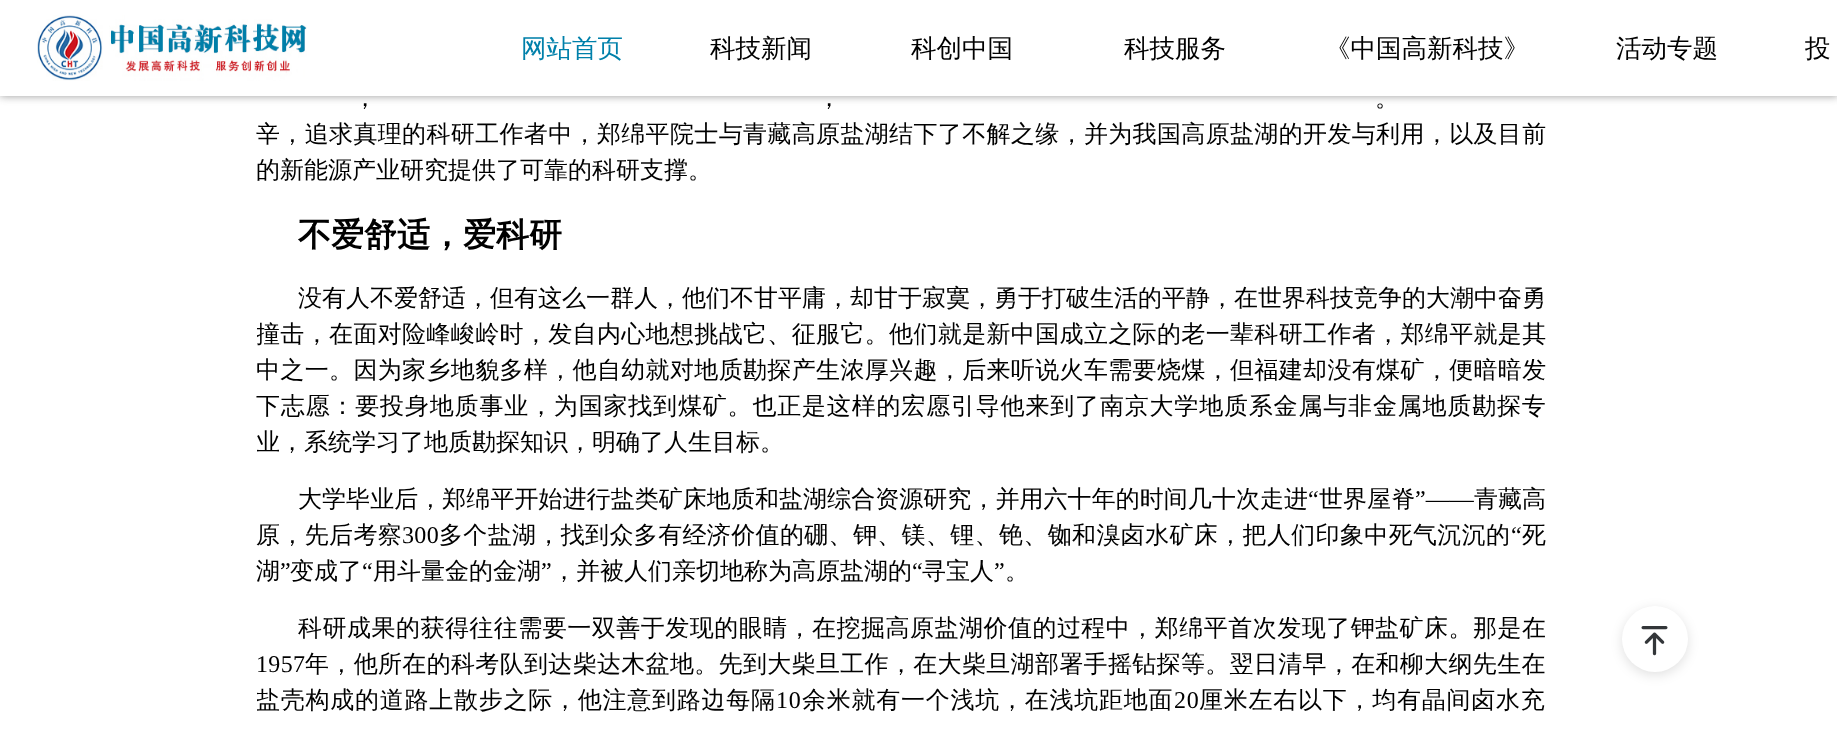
(async () => {
  const canvas = document.querySelector("canvas");
  canvas.width = 1837;
  canvas.height = 731;
  const ctx = canvas.getContext("2d");
  ctx.miterLimit = 4;
  ctx.fontKerning = "normal";
  async function loadImage(src) {
    const img = new Image();
    img.src = src;
    await img.decode();
    return img;
  }

  ctx.fillStyle = "#ffffff";
  ctx.fillRect(0, 0, 1837, 731);
  ctx.fillStyle = "#999999";
  ctx.filter = "blur(4px)";
  ctx.beginPath();
  ctx.rect(0, 0, 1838, 96);
  ctx.fill();
  ctx.filter = "none";
  ctx.fillStyle = "#ffffff";
  ctx.fillRect(0, 0, 1837, 96);
  ctx.drawImage(await loadImage("img/1.png"), 37, 15, 270, 66);
  ctx.fillStyle = "rgba(0, 0, 0, 0.12)";
  ctx.filter = "blur(6px)";
  ctx.beginPath();
  ctx.roundRect(1622, 609, 66, 66, 33);
  ctx.fill();
  ctx.filter = "none";
  ctx.fillStyle = "#ffffff";
  ctx.beginPath();
  ctx.arc(1655, 639, 33, 0, Math.PI * 2);
  ctx.fill();
  ctx.drawImage(await loadImage("img/2.png"), 1641, 626, 27, 30);
  ctx.font = "500 25.5px WenQuanYi Zen Hei";
  ctx.fillStyle = "#0080aa";
  ctx.fillText("网站首页", 521, 57);
  ctx.fillStyle = "#000000";
  for (const [text, x, y] of [
    ["科技新闻", 710, 57],
    ["科创中国", 911, 57],
    ["科技服务", 1124, 57],
    ["《中国高新科技》", 1325, 57],
    ["活动专题", 1616, 57],
  ]) {
    ctx.fillText(text, x, y);
  }
  ctx.save();
  ctx.beginPath();
  ctx.rect(1805, 12, 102, 60);
  ctx.clip();
  ctx.fillText("投", 1805, 57);
  ctx.restore();
  ctx.font = "500 24px WenQuanYi Zen Hei";
  for (const [text, x, y] of [
    ["，", 353, 106],
    ["，", 817, 106],
    ["。", 1375, 106],
  ]) {
    ctx.fillText(text, x, y);
  }
  ctx.letterSpacing = "0.35px";
  ctx.fillText("辛，追求真理的科研工作者中，郑绵平院士与青藏高原盐湖结下了不解之缘，并为我国高原盐湖的开发与利用，以及目前", 256, 142);
  ctx.letterSpacing = "0px";
  ctx.fillText("的新能源产业研究提供了可靠的科研支撑。", 256, 178);
  ctx.font = "bold 33px WenQuanYi Zen Hei";
  ctx.fillText("不爱舒适，爱科研", 298, 246);
  ctx.font = "500 24px WenQuanYi Zen Hei";
  ctx.fillText("没有人不爱舒适，但有这么一群人，他们不甘平庸，却甘于寂寞，勇于打破生活的平静，在世界科技竞争的大潮中奋勇", 298, 306);
  ctx.save();
  ctx.beginPath();
  ctx.rect(257, 0, 1290, 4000);
  ctx.clip();
  ctx.letterSpacing = "0.35px";
  ctx.fillText("撞击，在面对险峰峻岭时，发自内心地想挑战它、征服它。他们就是新中国成立之际的老一辈科研工作者，郑绵平就是其", 256, 342);
  ctx.restore();
  ctx.letterSpacing = "0.35px";
  ctx.fillText("中之一。因为家乡地貌多样，他自幼就对地质勘探产生浓厚兴趣，后来听说火车需要烧煤，但福建却没有煤矿，便暗暗发", 256, 378);
  ctx.letterSpacing = "0.82px";
  ctx.fillText("下志愿：要投身地质事业，为国家找到煤矿。也正是这样的宏愿引导他来到了南京大学地质系金属与非金属地质勘探专", 256, 414);
  ctx.save();
  ctx.beginPath();
  ctx.rect(257, 0, 1290, 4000);
  ctx.clip();
  ctx.letterSpacing = "0px";
  ctx.fillText("业，系统学习了地质勘探知识，明确了人生目标。", 256, 450);
  ctx.restore();
  ctx.letterSpacing = "0.05px";
  ctx.fillText("大学毕业后，郑绵平开始进行盐类矿床地质和盐湖综合资源研究，并用六十年的时间几十次走进", 298, 507);
  ctx.font = "24px Liberation Serif";
  ctx.fillText("“", 1308, 507);
  ctx.font = "500 24px WenQuanYi Zen Hei";
  ctx.fillText("世界屋脊", 1319, 507);
  ctx.font = "24px Liberation Serif";
  ctx.fillText("”——", 1415, 507);
  ctx.font = "500 24px WenQuanYi Zen Hei";
  ctx.fillText("青藏高", 1474, 507);
  ctx.letterSpacing = "0.35px";
  ctx.fillText("原，先后考察", 256, 543);
  ctx.font = "24px Liberation Serif";
  ctx.fillText("300", 402, 543);
  ctx.font = "500 24px WenQuanYi Zen Hei";
  ctx.fillText("多个盐湖，找到众多有经济价值的硼、钾、镁、锂、铯、铷和溴卤水矿床，把人们印象中死气沉沉的", 439, 543);
  ctx.font = "24px Liberation Serif";
  ctx.fillText("“", 1511, 543);
  ctx.font = "500 24px WenQuanYi Zen Hei";
  ctx.fillText("死", 1522, 543);
  ctx.letterSpacing = "0px";
  ctx.fillText("湖", 256, 579);
  ctx.font = "24px Liberation Serif";
  ctx.fillText("”", 280, 579);
  ctx.font = "500 24px WenQuanYi Zen Hei";
  ctx.fillText("变成了", 290, 579);
  ctx.font = "24px Liberation Serif";
  ctx.fillText("“", 362, 579);
  ctx.font = "500 24px WenQuanYi Zen Hei";
  ctx.fillText("用斗量金的金湖", 373, 579);
  ctx.font = "24px Liberation Serif";
  ctx.fillText("”", 541, 579);
  ctx.font = "500 24px WenQuanYi Zen Hei";
  ctx.fillText("，并被人们亲切地称为高原盐湖的", 552, 579);
  ctx.font = "24px Liberation Serif";
  ctx.fillText("“", 912, 579);
  ctx.font = "500 24px WenQuanYi Zen Hei";
  ctx.fillText("寻宝人", 922, 579);
  ctx.font = "24px Liberation Serif";
  ctx.fillText("”", 994, 579);
  ctx.font = "500 24px WenQuanYi Zen Hei";
  ctx.fillText("。", 1005, 579);
  ctx.letterSpacing = "0.48px";
  ctx.fillText("科研成果的获得往往需要一双善于发现的眼睛，在挖掘高原盐湖价值的过程中，郑绵平首次发现了钾盐矿床。那是在", 298, 636);
  ctx.letterSpacing = "0.33px";
  ctx.font = "24px Liberation Serif";
  ctx.fillText("1957", 256, 672);
  ctx.font = "500 24px WenQuanYi Zen Hei";
  ctx.fillText("年，他所在的科考队到达柴达木盆地。先到大柴旦工作，在大柴旦湖部署手摇钻探等。翌日清早，在和柳大纲先生在", 305, 672);
  ctx.save();
  ctx.beginPath();
  ctx.rect(257, 0, 1290, 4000);
  ctx.clip();
  ctx.letterSpacing = "0.75px";
  ctx.fillText("盐壳构成的道路上散步之际，他注意到路边每隔", 256, 708);
  ctx.restore();
  ctx.letterSpacing = "0.75px";
  ctx.font = "24px Liberation Serif";
  ctx.fillText("10", 776, 708);
  ctx.font = "500 24px WenQuanYi Zen Hei";
  ctx.fillText("余米就有一个浅坑，在浅坑距地面", 802, 708);
  ctx.font = "24px Liberation Serif";
  ctx.fillText("20", 1174, 708);
  ctx.font = "500 24px WenQuanYi Zen Hei";
  ctx.fillText("厘米左右以下，均有晶间卤水充", 1199, 708);
})();
